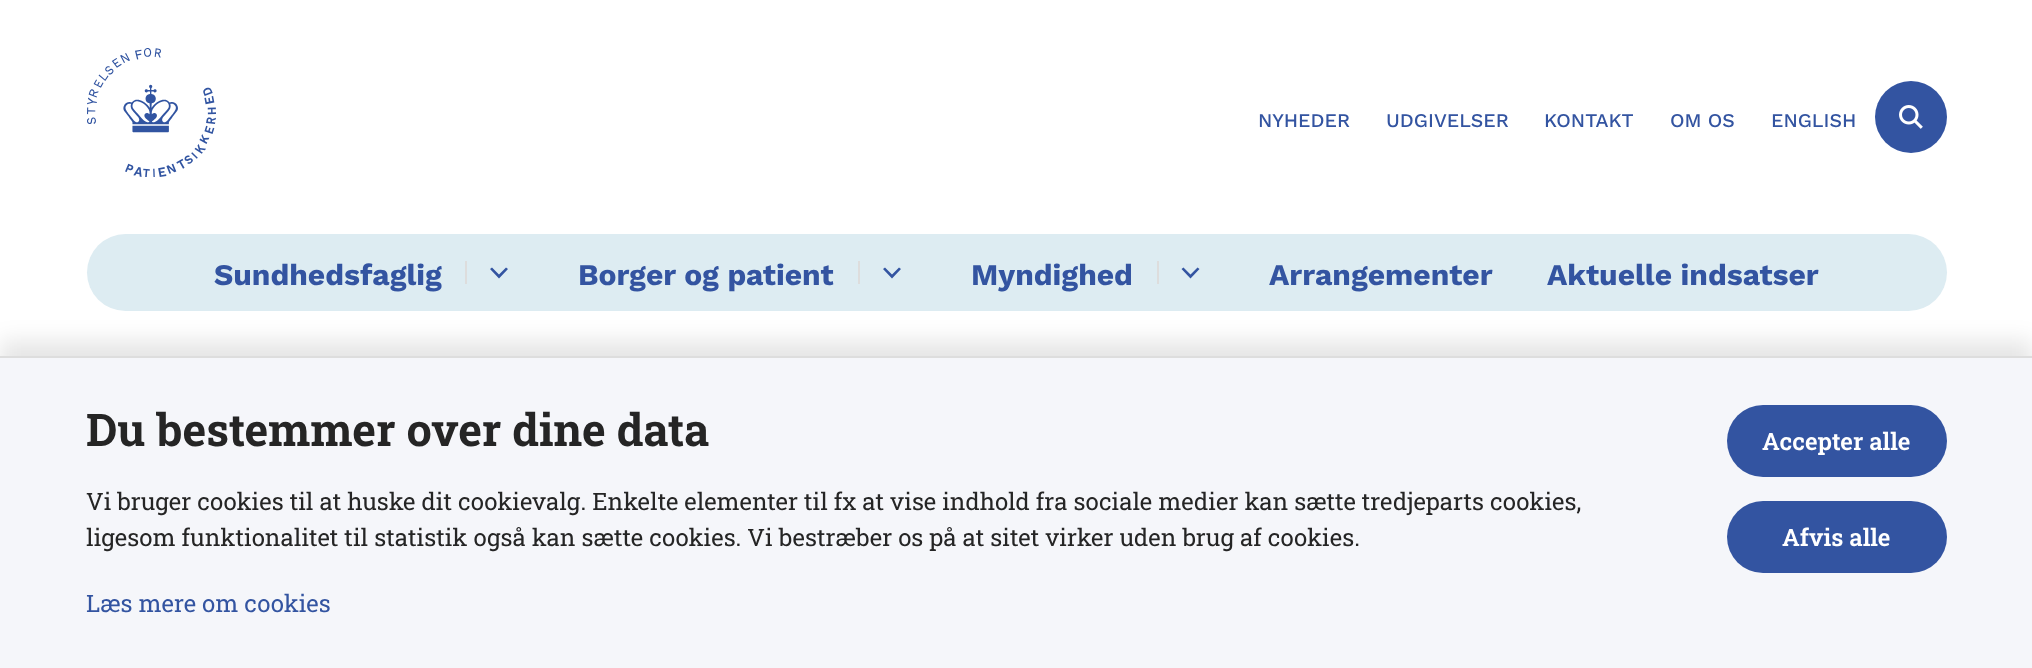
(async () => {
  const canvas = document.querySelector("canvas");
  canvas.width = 2032;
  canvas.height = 668;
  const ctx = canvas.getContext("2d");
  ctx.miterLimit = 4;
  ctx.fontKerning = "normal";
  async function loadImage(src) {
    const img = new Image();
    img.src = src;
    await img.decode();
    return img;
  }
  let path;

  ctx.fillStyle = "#ffffff";
  ctx.fillRect(0, 0, 2032, 668);
  ctx.drawImage(await loadImage("img/1.png"), 87, 48, 129, 129);
  ctx.fillStyle = "#3354a1";
  ctx.beginPath();
  ctx.arc(1911, 117, 36, 0, Math.PI * 2);
  ctx.fill();
  ctx.drawImage(await loadImage("img/2.png"), 1899, 105, 24, 24);
  ctx.fillStyle = "#ddecf2";
  ctx.beginPath();
  ctx.roundRect(87, 234, 1860, 77, 38.5);
  ctx.fill();
  ctx.fillStyle = "#dddddd";
  ctx.fillRect(465, 261, 2, 23);
  ctx.fillStyle = "#3354a1";
  path = new Path2D("M499 278.5L508 269L506 267.5L499 274.5L492 267.5L490 269Z");
  ctx.fill(path);
  ctx.fillStyle = "#dddddd";
  ctx.fillRect(858, 261, 2, 23);
  ctx.fillStyle = "#3354a1";
  path = new Path2D("M892 278.5L901 269L899 267.5L892 274.5L885 267.5L883 269Z");
  ctx.fill(path);
  ctx.fillStyle = "#dddddd";
  ctx.fillRect(1157, 261, 2, 23);
  ctx.fillStyle = "#3354a1";
  path = new Path2D("M1190.5 278.5L1199.5 269L1197.5 267.5L1190.5 274.5L1183.5 267.5L1181.5 269Z");
  ctx.fill(path);
  ctx.fillStyle = "rgba(0, 0, 0, 0.1)";
  ctx.filter = "blur(11px)";
  ctx.beginPath();
  ctx.rect(0, 341, 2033, 313);
  ctx.fill();
  ctx.filter = "none";
  ctx.fillStyle = "#f5f6fa";
  ctx.fillRect(0, 358, 2032, 310);
  ctx.fillStyle = "#dddddd";
  ctx.fillRect(0, 356, 2032, 2);
  ctx.fillStyle = "#3354a1";
  ctx.beginPath();
  ctx.roundRect(1727, 405, 220, 72, 36);
  ctx.fill();
  ctx.beginPath();
  ctx.roundRect(1727, 501, 220, 72, 36);
  ctx.fill();
  ctx.font = "500 19.5px Work Sans";
  for (const [text, x, y] of [
    ["NYHEDER", 1258, 127],
    ["UDGIVELSER", 1386, 127],
    ["KONTAKT", 1544, 127],
    ["OM OS", 1670, 127],
    ["ENGLISH", 1771, 127],
  ]) {
    ctx.fillText(text, x, y);
  }
  ctx.font = "bold 30px Work Sans";
  for (const [text, x, y] of [
    ["Sundhedsfaglig", 214, 285],
    ["Borger og patient", 578, 285],
    ["Myndighed", 971, 285],
    ["Arrangementer", 1269, 285],
    ["Aktuelle indsatser", 1547, 285],
  ]) {
    ctx.fillText(text, x, y);
  }
  ctx.font = "bold 45px Roboto Slab";
  ctx.fillStyle = "#252525";
  ctx.fillText("Du bestemmer over dine data", 86, 446);
  ctx.font = "24px Roboto Slab";
  ctx.fillText("Vi bruger cookies til at huske dit cookievalg. Enkelte elementer til fx at vise indhold fra sociale medier kan sætte tredjeparts cookies,", 86, 510);
  ctx.fillText("ligesom funktionalitet til statistik også kan sætte cookies. Vi bestræber os på at sitet virker uden brug af cookies.", 86, 546);
  ctx.fillStyle = "#3354a1";
  ctx.fillText("Læs mere om cookies", 86, 612);
  ctx.font = "600 24px Roboto Slab";
  ctx.fillStyle = "#ffffff";
  ctx.fillText("Accepter alle", 1762, 450);
  ctx.fillText("Afvis alle", 1782, 546);
})();
